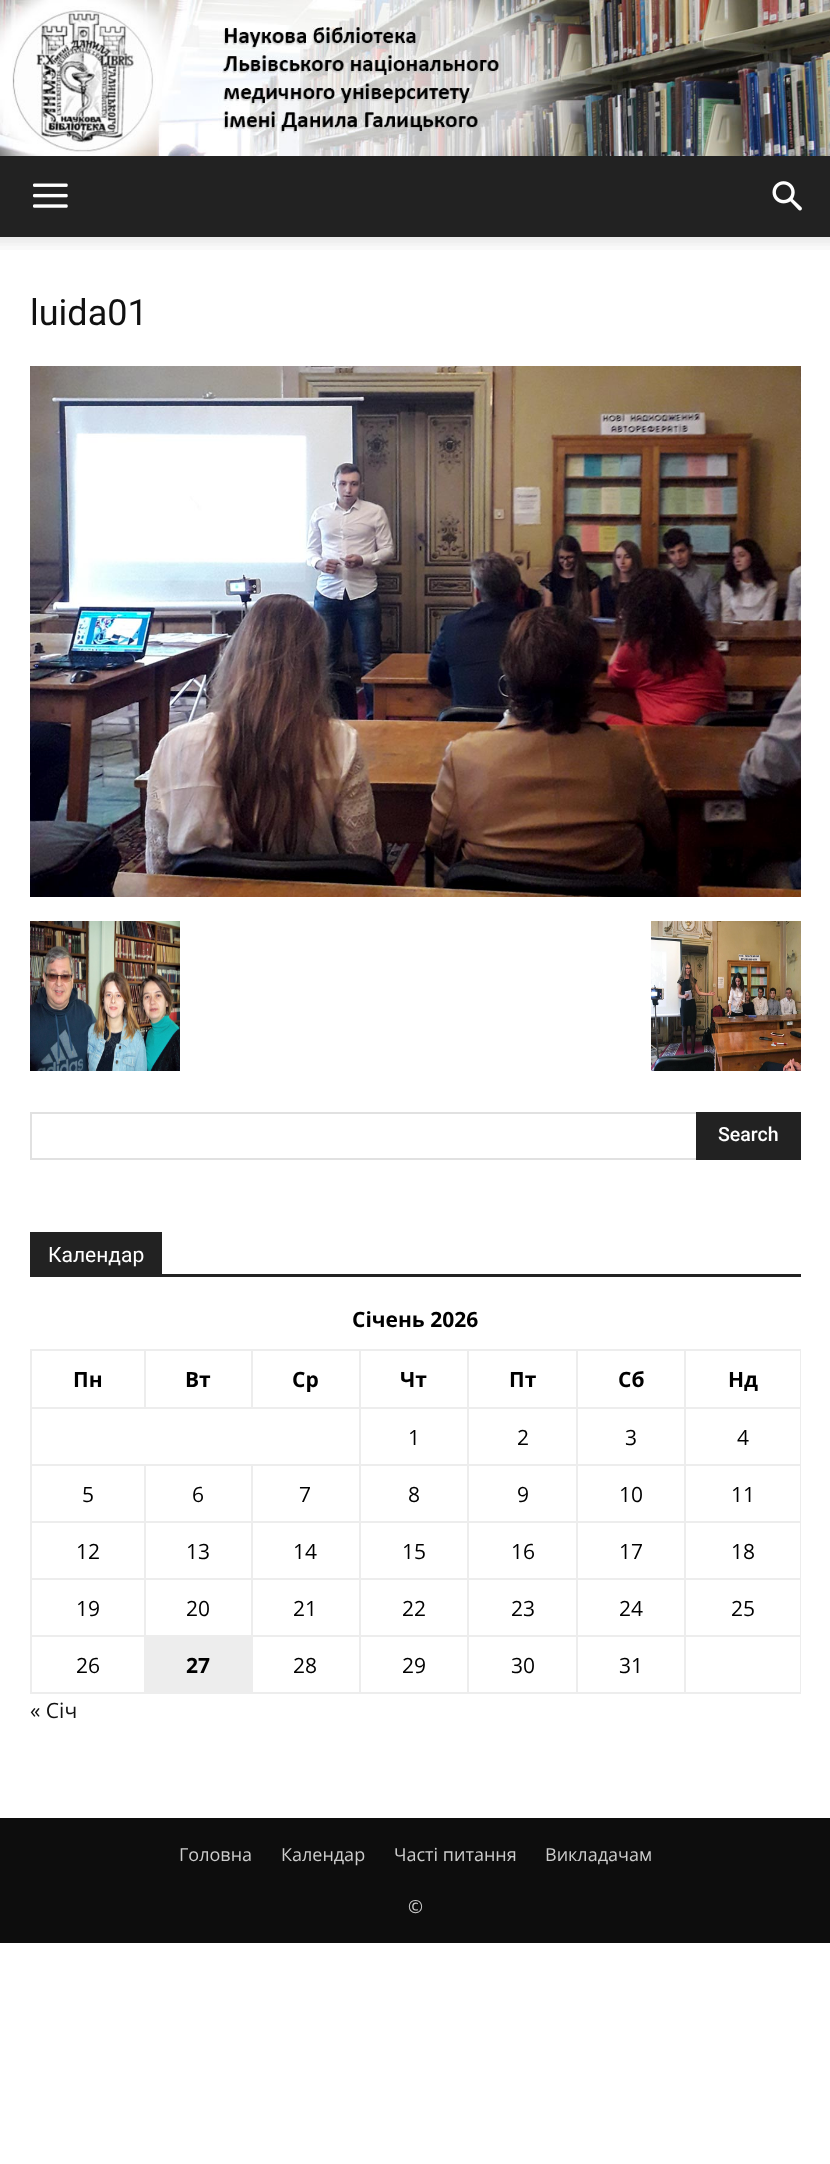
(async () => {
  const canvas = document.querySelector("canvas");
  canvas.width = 830;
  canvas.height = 2164;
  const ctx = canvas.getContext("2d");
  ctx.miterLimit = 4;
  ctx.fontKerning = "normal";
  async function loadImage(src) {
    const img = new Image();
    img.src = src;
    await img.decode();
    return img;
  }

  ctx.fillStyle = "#ffffff";
  ctx.fillRect(0, 0, 830, 2164);
  ctx.drawImage(await loadImage("img/1.png"), 0, 0, 830, 156);
  ctx.fillStyle = "#222222";
  ctx.fillRect(0, 156, 830, 81);
  ctx.drawImage(await loadImage("img/2.png"), 33, 183, 35, 25);
  ctx.drawImage(await loadImage("img/3.png"), 772, 181, 30, 30);
  ctx.drawImage(await loadImage("img/4.png"), 0, 237, 830, 13);
  ctx.drawImage(await loadImage("img/5.png"), 30, 366, 771, 531);
  ctx.drawImage(await loadImage("img/6.png"), 30, 921, 150, 150);
  ctx.drawImage(await loadImage("img/7.png"), 651, 921, 150, 150);
  for (const [x, y, w, h, color] of [
    [30, 1112, 666, 2, "#e1e1e1"],
    [30, 1158, 666, 2, "#e1e1e1"],
    [30, 1112, 2, 48, "#e1e1e1"],
    [696, 1112, 105, 48, "#222222"],
    [30, 1274, 771, 3, "#222222"],
    [30, 1232, 132, 42, "#222222"],
    [684, 1349, 117, 2, "#ededed"],
    [684, 1407, 117, 2, "#ededed"],
    [684, 1464, 117, 2, "#ededed"],
    [684, 1521, 117, 2, "#ededed"],
    [684, 1578, 117, 2, "#ededed"],
    [684, 1635, 117, 2, "#ededed"],
    [800, 1635, 1, 59, "#ededed"],
    [684, 1692, 117, 2, "#ededed"],
    [684, 1635, 2, 59, "#ededed"],
    [576, 1635, 110, 2, "#ededed"],
    [684, 1578, 2, 59, "#ededed"],
    [576, 1578, 110, 2, "#ededed"],
    [684, 1521, 2, 59, "#ededed"],
    [576, 1521, 110, 2, "#ededed"],
    [684, 1464, 2, 59, "#ededed"],
    [576, 1464, 110, 2, "#ededed"],
    [684, 1407, 2, 59, "#ededed"],
    [576, 1407, 110, 2, "#ededed"],
    [684, 1349, 2, 60, "#ededed"],
    [576, 1349, 110, 2, "#ededed"],
    [576, 1692, 110, 2, "#ededed"],
    [576, 1635, 2, 59, "#ededed"],
    [467, 1635, 111, 2, "#ededed"],
    [576, 1578, 2, 59, "#ededed"],
    [467, 1578, 111, 2, "#ededed"],
    [576, 1521, 2, 59, "#ededed"],
    [467, 1521, 111, 2, "#ededed"],
    [576, 1464, 2, 59, "#ededed"],
    [467, 1464, 111, 2, "#ededed"],
    [576, 1407, 2, 59, "#ededed"],
    [467, 1407, 111, 2, "#ededed"],
    [576, 1349, 2, 60, "#ededed"],
    [467, 1349, 111, 2, "#ededed"],
    [467, 1692, 111, 2, "#ededed"],
    [467, 1635, 2, 59, "#ededed"],
    [359, 1635, 109, 2, "#ededed"],
    [467, 1578, 2, 59, "#ededed"],
    [359, 1578, 109, 2, "#ededed"],
    [467, 1521, 2, 59, "#ededed"],
    [359, 1521, 109, 2, "#ededed"],
    [467, 1464, 2, 59, "#ededed"],
    [359, 1464, 109, 2, "#ededed"],
    [467, 1407, 2, 59, "#ededed"],
    [359, 1407, 109, 2, "#ededed"],
    [467, 1349, 2, 60, "#ededed"],
    [359, 1349, 109, 2, "#ededed"],
    [359, 1692, 109, 2, "#ededed"],
    [359, 1635, 2, 59, "#ededed"],
    [251, 1635, 109, 2, "#ededed"],
    [359, 1578, 2, 59, "#ededed"],
    [251, 1578, 109, 2, "#ededed"],
    [359, 1521, 2, 59, "#ededed"],
    [251, 1521, 109, 2, "#ededed"],
    [359, 1464, 2, 59, "#ededed"],
    [251, 1464, 109, 2, "#ededed"],
    [359, 1407, 2, 59, "#ededed"],
    [30, 1407, 330, 2, "#ededed"],
    [359, 1349, 2, 60, "#ededed"],
    [251, 1349, 109, 2, "#ededed"],
    [251, 1349, 2, 60, "#ededed"],
    [144, 1349, 108, 2, "#ededed"],
    [144, 1349, 2, 60, "#ededed"],
    [30, 1349, 116, 2, "#ededed"],
    [251, 1692, 109, 2, "#ededed"],
    [251, 1635, 2, 59, "#ededed"],
    [144, 1635, 108, 2, "#ededed"],
    [251, 1578, 2, 59, "#ededed"],
    [144, 1578, 108, 2, "#ededed"],
    [251, 1521, 2, 59, "#ededed"],
    [144, 1521, 108, 2, "#ededed"],
    [251, 1464, 2, 59, "#ededed"],
    [144, 1464, 108, 2, "#ededed"],
    [144, 1692, 108, 2, "#ededed"],
    [144, 1635, 2, 59, "#ededed"],
    [30, 1635, 116, 2, "#ededed"],
    [144, 1578, 2, 59, "#ededed"],
    [30, 1578, 116, 2, "#ededed"],
    [144, 1521, 2, 59, "#ededed"],
    [30, 1521, 116, 2, "#ededed"],
    [144, 1464, 2, 59, "#ededed"],
    [30, 1464, 116, 2, "#ededed"],
    [30, 1692, 116, 2, "#ededed"],
    [30, 1635, 2, 59, "#ededed"],
    [30, 1578, 2, 59, "#ededed"],
    [30, 1521, 2, 59, "#ededed"],
    [30, 1464, 2, 59, "#ededed"],
    [30, 1407, 2, 59, "#ededed"],
    [30, 1349, 2, 60, "#ededed"],
    [800, 1578, 1, 59, "#ededed"],
    [800, 1521, 1, 59, "#ededed"],
    [800, 1464, 1, 59, "#ededed"],
    [800, 1407, 1, 59, "#ededed"],
    [800, 1349, 1, 60, "#ededed"],
    [146, 1637, 105, 55, "#ededed"],
    [0, 1818, 830, 125, "#0d0d0d"],
  ]) {
    ctx.fillStyle = color;
    ctx.fillRect(x, y, w, h);
  }
  ctx.font = "36px Roboto";
  ctx.fillStyle = "#111111";
  ctx.fillText("luida01", 30, 325);
  ctx.font = "500 19.5px Roboto";
  ctx.fillStyle = "#ffffff";
  ctx.fillText("Search", 718, 1141);
  ctx.font = "21px Roboto";
  ctx.fillText("Календар", 48, 1262);
  ctx.font = "bold 21px Open Sans";
  ctx.fillStyle = "#000000";
  for (const [text, x, y] of [
    ["Січень 2026", 352, 1327],
    ["Пн", 73, 1387],
    ["Вт", 185, 1387],
    ["Ср", 292, 1387],
    ["Чт", 400, 1387],
    ["Пт", 509, 1387],
    ["Сб", 618, 1387],
    ["Нд", 728, 1387],
  ]) {
    ctx.fillText(text, x, y);
  }
  ctx.font = "21px Open Sans";
  for (const [text, x, y] of [
    ["1", 408, 1445],
    ["2", 517, 1445],
    ["3", 625, 1445],
    ["4", 737, 1445],
    ["5", 82, 1502],
    ["6", 192, 1502],
    ["7", 299, 1502],
    ["8", 408, 1502],
    ["9", 517, 1502],
    ["10", 619, 1502],
    ["11", 731, 1502],
    ["12", 76, 1559],
    ["13", 186, 1559],
    ["14", 293, 1559],
    ["15", 402, 1559],
    ["16", 511, 1559],
    ["17", 619, 1559],
    ["18", 731, 1559],
    ["19", 76, 1616],
    ["20", 186, 1616],
    ["21", 293, 1616],
    ["22", 402, 1616],
    ["23", 511, 1616],
    ["24", 619, 1616],
    ["25", 731, 1616],
    ["26", 76, 1673],
  ]) {
    ctx.fillText(text, x, y);
  }
  ctx.font = "bold 21px Open Sans";
  ctx.fillText("27", 186, 1673);
  ctx.font = "21px Open Sans";
  for (const [text, x, y] of [
    ["28", 293, 1673],
    ["29", 402, 1673],
    ["30", 511, 1673],
    ["31", 619, 1673],
  ]) {
    ctx.fillText(text, x, y);
  }
  ctx.fillStyle = "#111111";
  ctx.fillText("« Січ", 30, 1718);
  ctx.font = "18px Open Sans";
  ctx.fillStyle = "#cccccc";
  for (const [text, x, y] of [
    ["Головна", 179, 1861],
    ["Календар", 281, 1861],
    ["Часті питання", 394, 1861],
    ["Викладачам", 545, 1861],
    ["©", 408, 1913],
  ]) {
    ctx.fillText(text, x, y);
  }
})();
